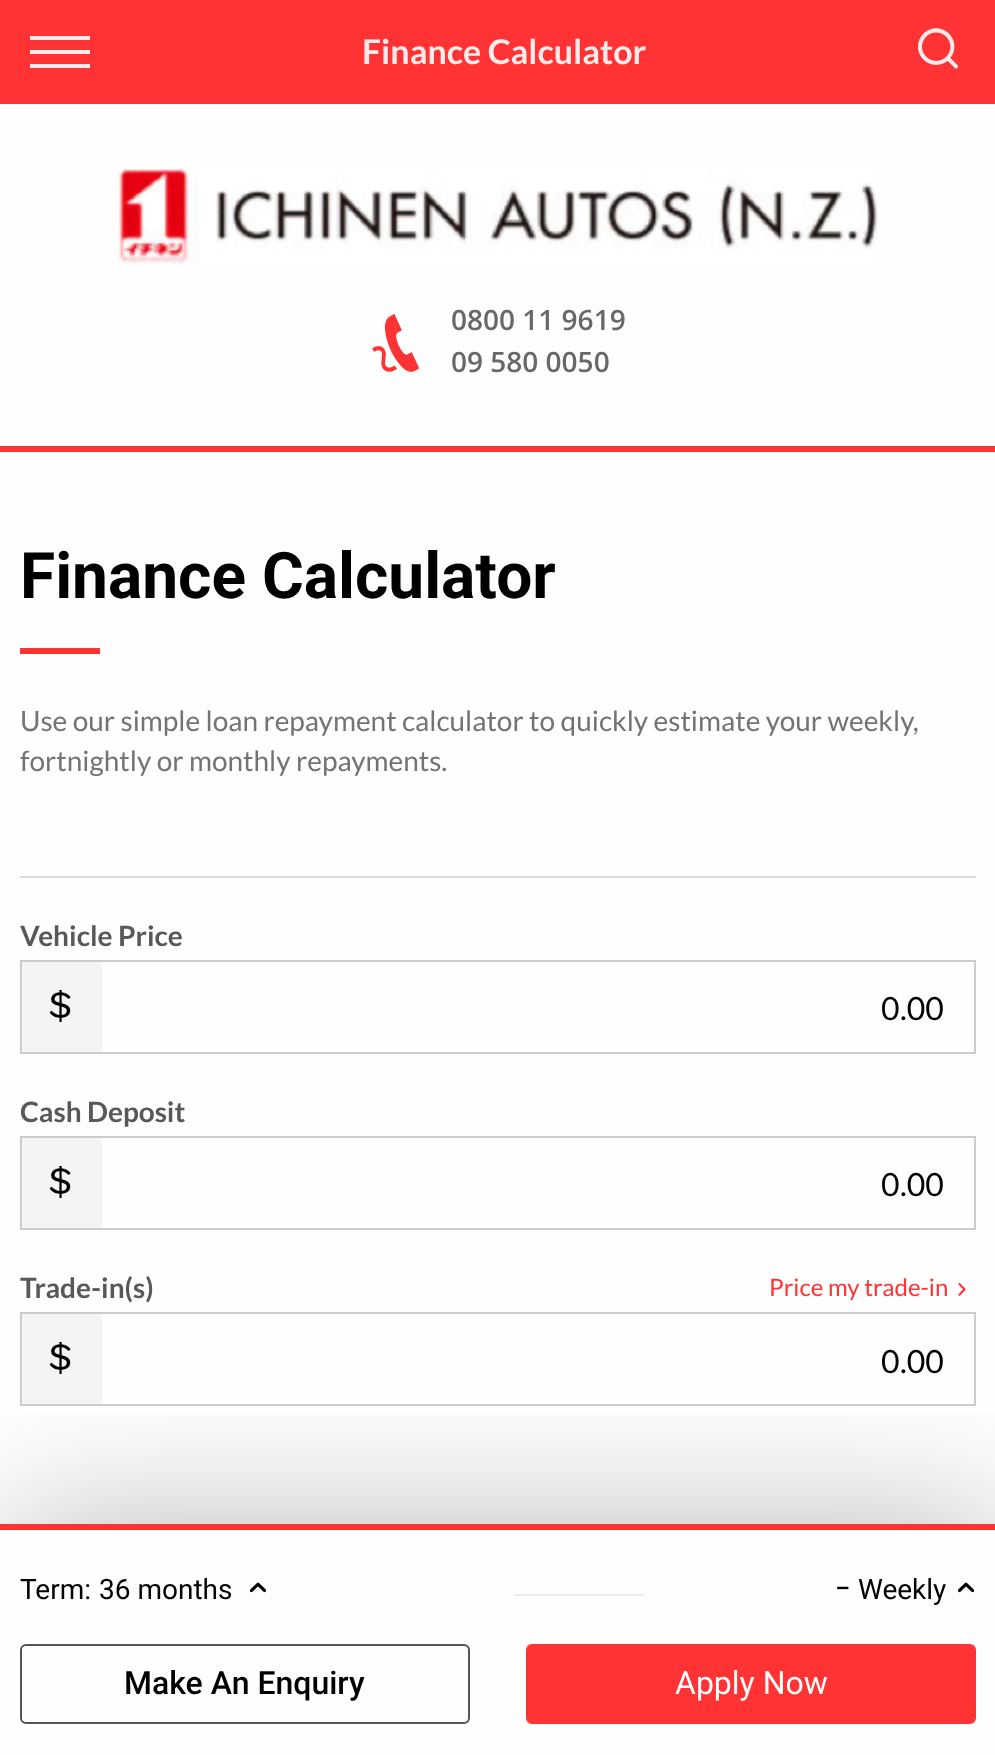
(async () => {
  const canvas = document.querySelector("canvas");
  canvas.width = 995;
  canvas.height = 1755;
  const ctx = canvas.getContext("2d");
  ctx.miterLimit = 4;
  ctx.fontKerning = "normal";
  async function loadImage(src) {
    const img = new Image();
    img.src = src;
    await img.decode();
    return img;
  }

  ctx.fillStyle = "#fefefe";
  ctx.fillRect(0, 0, 995, 1755);
  for (const [x, y, w, h, color] of [
    [0, 0, 995, 104, "#ff3333"],
    [30, 64, 60, 4, "#feeaea"],
    [30, 50, 60, 4, "#feeaea"],
    [30, 36, 60, 4, "#feeaea"],
  ]) {
    ctx.fillStyle = color;
    ctx.fillRect(x, y, w, h);
  }
  ctx.drawImage(await loadImage("img/1.png"), 918, 28, 40, 41);
  ctx.fillStyle = "#ff3333";
  ctx.fillRect(0, 446, 995, 6);
  ctx.drawImage(await loadImage("img/2.png"), 116, 168, 762, 97);
  ctx.drawImage(await loadImage("img/3.png"), 372, 314, 48, 58);
  for (const [x, y, w, h, color] of [
    [20, 648, 80, 6, "#ff3333"],
    [20, 876, 956, 2, "#dbdbdb"],
    [22, 962, 80, 90, "#f4f4f4"],
  ]) {
    ctx.fillStyle = color;
    ctx.fillRect(x, y, w, h);
  }
  ctx.drawImage(await loadImage("img/4.png"), 49, 990, 22, 32);
  ctx.strokeStyle = "#cccccc";
  ctx.lineWidth = 2;
  ctx.strokeRect(21, 961, 954, 92);
  ctx.fillRect(22, 1138, 80, 90);
  ctx.drawImage(await loadImage("img/4.png"), 49, 1166, 22, 32);
  ctx.strokeRect(21, 1137, 954, 92);
  ctx.drawImage(await loadImage("img/5.png"), 958, 1283, 8, 13);
  ctx.fillRect(22, 1314, 80, 90);
  ctx.drawImage(await loadImage("img/4.png"), 49, 1342, 22, 32);
  ctx.strokeRect(21, 1313, 954, 92);
  ctx.fillStyle = "#991111";
  ctx.fillRect(514, 1594, 130, 2);
  ctx.save();
  ctx.beginPath();
  ctx.rect(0, 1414, 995, 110);
  ctx.clip();
  ctx.fillStyle = "rgba(0, 0, 0, 0.3)";
  ctx.filter = "blur(80px)";
  ctx.beginPath();
  ctx.rect(10, 1534, 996, 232);
  ctx.fill();
  ctx.filter = "none";
  ctx.restore();
  ctx.fillStyle = "rgba(255, 255, 255, 0.9)";
  ctx.fillRect(514, 1594, 130, 2);
  ctx.fillStyle = "#ff3333";
  ctx.fillRect(0, 1524, 995, 6);
  ctx.drawImage(await loadImage("img/6.png"), 249, 1582, 18, 11);
  ctx.drawImage(await loadImage("img/7.png"), 957, 1582, 18, 11);
  ctx.beginPath();
  ctx.roundRect(21, 1645, 448, 78, 5);
  ctx.strokeStyle = "#555555";
  ctx.stroke();
  ctx.beginPath();
  ctx.roundRect(527, 1645, 448, 78, 5);
  ctx.fill();
  ctx.strokeStyle = "#ff3333";
  ctx.stroke();
  ctx.font = "bold 34px Lato";
  ctx.fillStyle = "#ffebeb";
  ctx.fillText("Finance Calculator", 362, 64);
  ctx.font = "600 28px Open Sans";
  ctx.fillStyle = "#686868";
  ctx.fillText("0800 11 9619", 451, 330);
  ctx.fillText("09 580 0050", 451, 372);
  ctx.font = "bold 64px Roboto";
  ctx.fillStyle = "#000000";
  ctx.fillText("Finance Calculator", 20, 598);
  ctx.font = "28px Lato";
  ctx.fillStyle = "#737373";
  ctx.fillText("Use our simple loan repayment calculator to quickly estimate your weekly,", 20, 731);
  ctx.fillText("fortnightly or monthly repayments.", 20, 771);
  ctx.font = "bold 28px Lato";
  ctx.fillStyle = "#585858";
  ctx.fillText("Vehicle Price", 20, 946);
  ctx.font = "32px Lato";
  ctx.fillStyle = "#0a0a0a";
  ctx.fillText("0", 881, 1020);
  ctx.fillStyle = "#000000";
  ctx.fillText(".00", 900, 1020);
  ctx.font = "bold 28px Lato";
  ctx.fillStyle = "#585858";
  ctx.fillText("Cash Deposit", 20, 1122);
  ctx.font = "32px Lato";
  ctx.fillStyle = "#0a0a0a";
  ctx.fillText("0", 881, 1196);
  ctx.fillStyle = "#000000";
  ctx.fillText(".00", 900, 1196);
  ctx.font = "bold 28px Lato";
  ctx.fillStyle = "#585858";
  ctx.fillText("Trade-in(s)", 20, 1298);
  ctx.font = "24px Lato";
  ctx.fillStyle = "#ff3333";
  ctx.fillText("Price my trade-in", 769, 1296);
  ctx.font = "32px Lato";
  ctx.fillStyle = "#0a0a0a";
  ctx.fillText("0", 881, 1373);
  ctx.fillStyle = "#000000";
  ctx.fillText(".00", 900, 1373);
  ctx.font = "28px Roboto";
  ctx.fillText("Term:", 20, 1599);
  ctx.fillText("36 months", 99, 1599);
  ctx.font = "300 48px Roboto";
  ctx.fillText("-", 836, 1603);
  ctx.font = "28px Roboto";
  ctx.fillText("Weekly", 858, 1599);
  ctx.font = "500 32px Roboto";
  ctx.fillText("Make An Enquiry", 124, 1694);
  ctx.font = "32px Roboto";
  ctx.fillStyle = "#ffffff";
  ctx.fillText("Apply Now", 675, 1694);
})();
